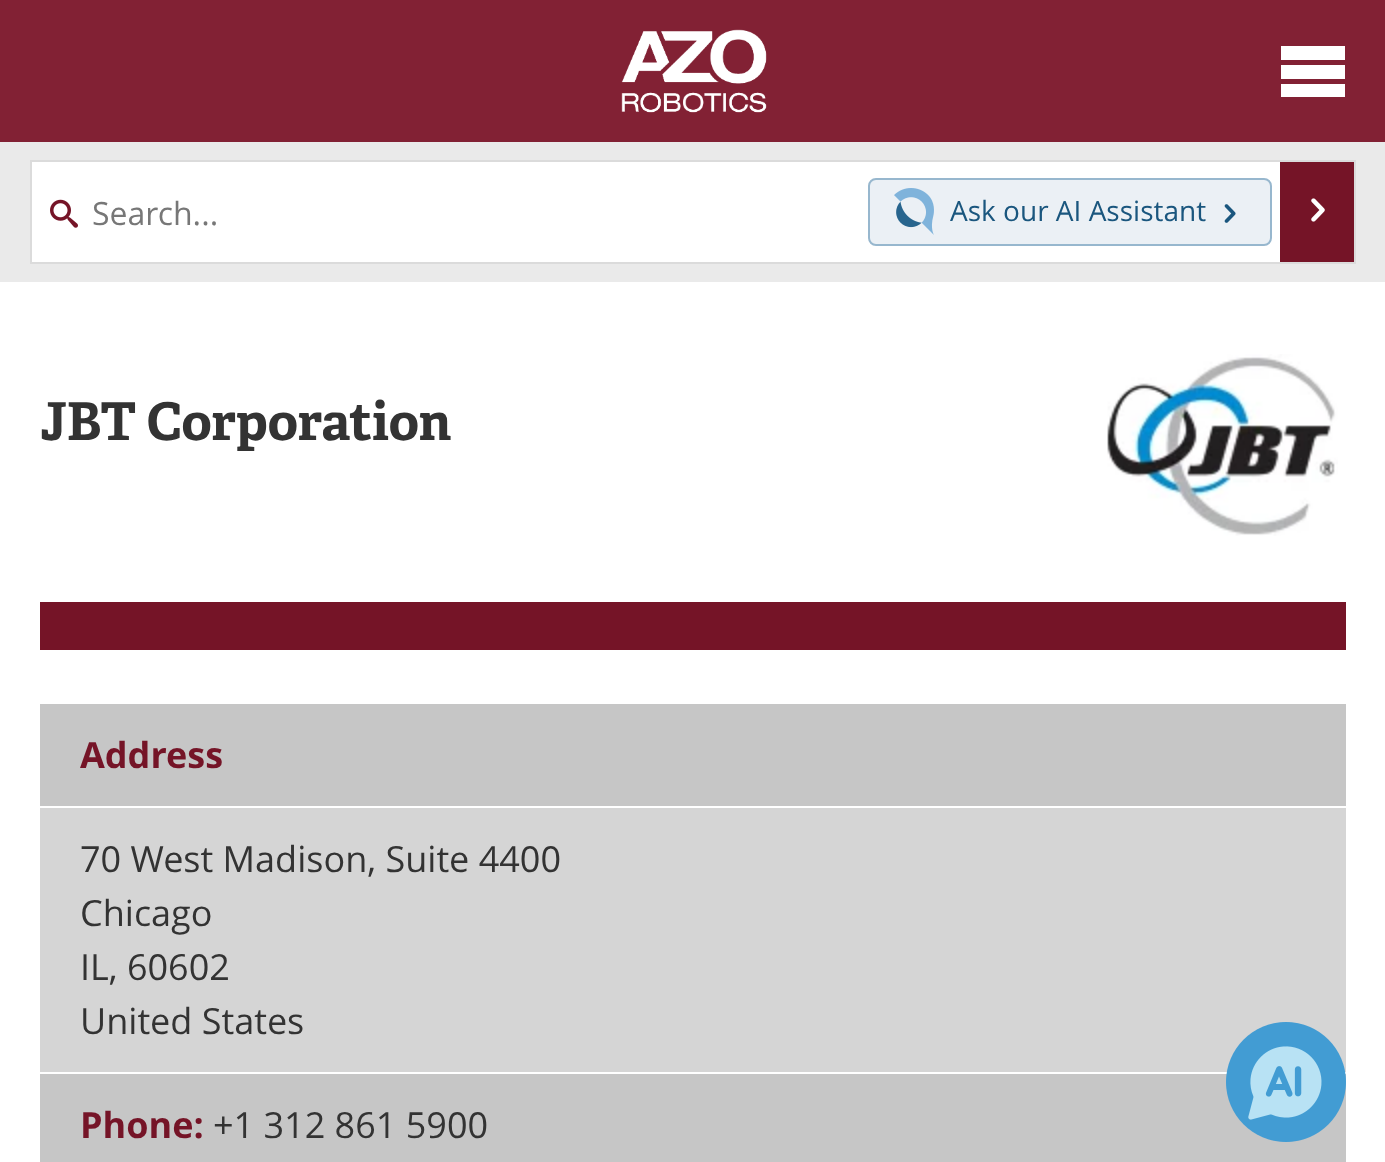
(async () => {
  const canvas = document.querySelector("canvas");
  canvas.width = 1385;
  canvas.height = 1162;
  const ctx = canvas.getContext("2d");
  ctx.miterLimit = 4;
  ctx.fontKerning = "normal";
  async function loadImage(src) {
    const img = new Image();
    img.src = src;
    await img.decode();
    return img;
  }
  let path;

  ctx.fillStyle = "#ffffff";
  ctx.fillRect(0, 0, 1385, 1162);
  ctx.fillStyle = "#eaeaea";
  ctx.fillRect(0, 142, 1385, 140);
  ctx.fillStyle = "#822134";
  ctx.fillRect(0, 0, 1385, 142);
  ctx.drawImage(await loadImage("img/1.png"), 621, 29, 146, 84);
  ctx.fillStyle = "#ffffff";
  path = new Path2D("M1281 46H1345V60H1281ZM1281 65H1345V79H1281ZM1281 84H1345V97H1281Z");
  ctx.fill(path);
  ctx.fillRect(32, 162, 1248, 100);
  ctx.strokeStyle = "#dbdbdb";
  ctx.lineWidth = 2;
  ctx.strokeRect(31, 161, 1324, 102);
  ctx.drawImage(await loadImage("img/2.png"), 50, 199, 28, 29);
  ctx.fillStyle = "#ebf0f5";
  ctx.beginPath();
  ctx.roundRect(869, 179, 402, 66, 7);
  ctx.fill();
  ctx.strokeStyle = "#97b7ce";
  ctx.stroke();
  ctx.drawImage(await loadImage("img/3.png"), 894, 188, 40, 47);
  ctx.drawImage(await loadImage("img/4.png"), 1224, 204, 12, 19);
  ctx.fillStyle = "#751427";
  ctx.fillRect(1280, 162, 74, 100);
  ctx.drawImage(await loadImage("img/5.png"), 1311, 198, 14, 24);
  ctx.fillRect(40, 602, 1306, 48);
  ctx.drawImage(await loadImage("img/6.png"), 1107, 354, 231, 182);
  for (const [x, y, w, h, color] of [
    [40, 704, 1306, 102, "#c6c6c6"],
    [40, 808, 1306, 264, "#d5d5d5"],
    [40, 1074, 1306, 88, "#c6c6c6"],
  ]) {
    ctx.fillStyle = color;
    ctx.fillRect(x, y, w, h);
  }
  ctx.drawImage(await loadImage("img/7.png"), 1226, 1022, 120, 120);
  ctx.font = "32px Open Sans";
  ctx.fillStyle = "#777777";
  ctx.fillText("Search...", 92, 225);
  ctx.font = "28px Open Sans";
  ctx.fillStyle = "#1a567e";
  ctx.fillText("Ask our AI Assistant", 950, 221);
  ctx.font = "bold 52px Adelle";
  ctx.fillStyle = "#333333";
  ctx.fillText("JBT Corporation", 40, 440);
  ctx.font = "bold 36px Open Sans";
  ctx.fillStyle = "#751427";
  ctx.fillText("Address", 80, 768);
  ctx.font = "36px Open Sans";
  ctx.fillStyle = "#333333";
  for (const [text, x, y] of [
    ["70 West Madison, Suite 4400", 80, 872],
    ["Chicago", 80, 926],
    ["IL, 60602", 80, 980],
    ["United States", 80, 1034],
  ]) {
    ctx.fillText(text, x, y);
  }
  ctx.font = "bold 36px Open Sans";
  ctx.fillStyle = "#751427";
  ctx.fillText("Phone:", 80, 1138);
  ctx.font = "36px Open Sans";
  ctx.fillStyle = "#333333";
  ctx.fillText("+1 312 861 5900", 213, 1138);
})();
